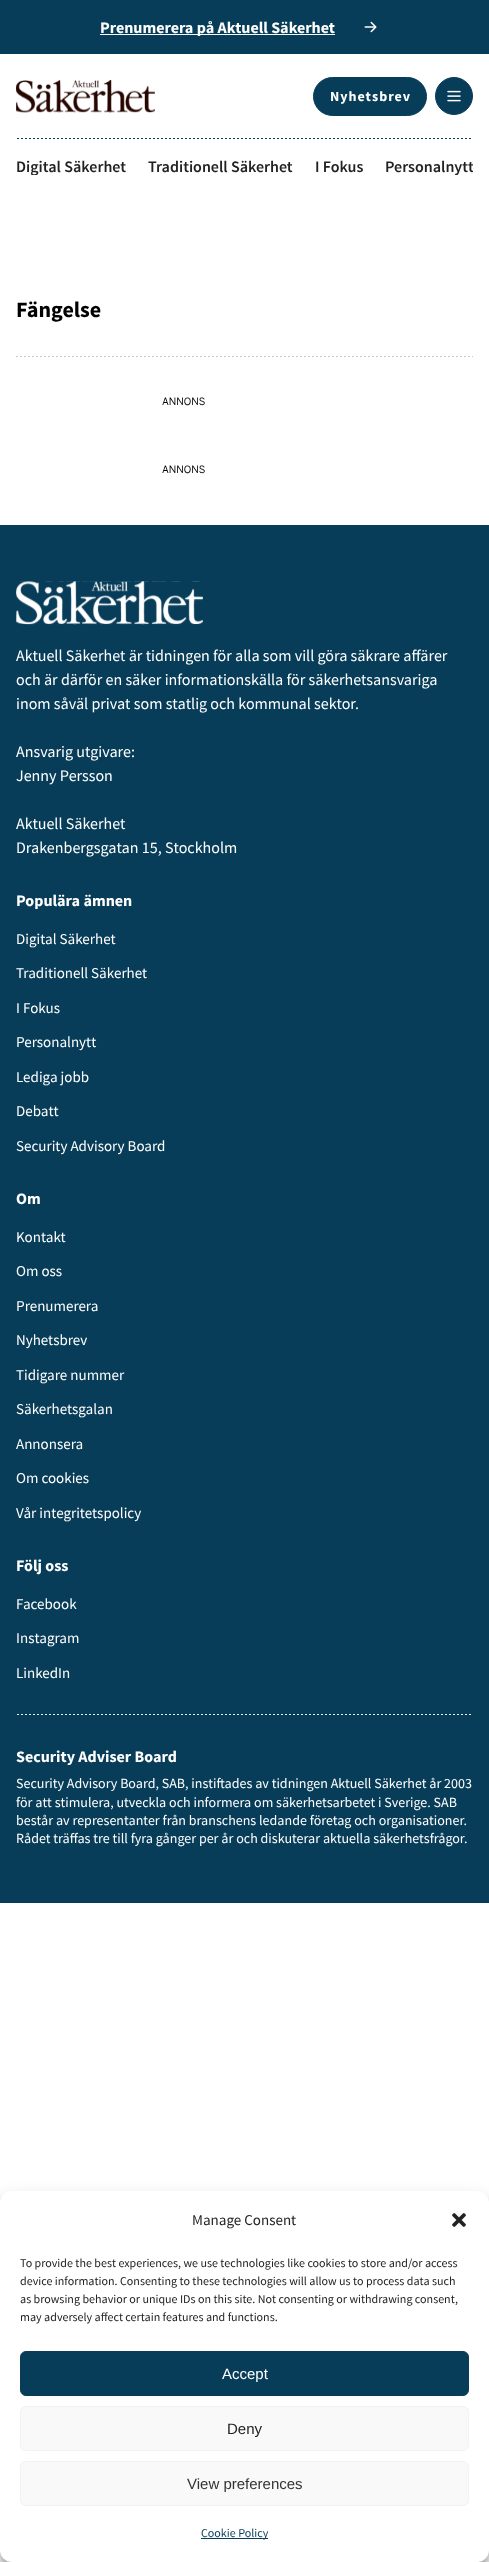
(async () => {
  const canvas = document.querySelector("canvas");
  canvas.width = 489;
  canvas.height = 2562;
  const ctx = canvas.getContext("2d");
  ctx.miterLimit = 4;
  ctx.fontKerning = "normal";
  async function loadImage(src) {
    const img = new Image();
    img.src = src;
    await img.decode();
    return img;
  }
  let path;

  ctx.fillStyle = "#ffffff";
  ctx.fillRect(0, 0, 489, 2562);
  ctx.fillStyle = "#083d59";
  ctx.fillRect(0, 0, 489, 54);
  ctx.fillStyle = "#ffffff";
  ctx.fillRect(100, 34, 235, 1);
  ctx.drawImage(await loadImage("img/1.png"), 364, 21, 13, 12);
  ctx.drawImage(await loadImage("img/2.png"), 16, 80, 139, 33);
  ctx.fillStyle = "#083d59";
  ctx.beginPath();
  ctx.roundRect(313.5, 77.5, 113, 38, 19);
  ctx.fill();
  ctx.strokeStyle = "#083d59";
  ctx.stroke();
  ctx.beginPath();
  ctx.arc(454, 96, 18.5, 0, Math.PI * 2);
  ctx.fill();
  ctx.stroke();
  ctx.drawImage(await loadImage("img/3.png"), 447, 90, 14, 12);
  ctx.save();
  ctx.beginPath();
  ctx.rect(16, 138, 457, 2);
  ctx.clip();
  path = new Path2D("M-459 138.5H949");
  ctx.setLineDash([2, 2]);
  ctx.stroke(path);
  ctx.restore();
  ctx.save();
  ctx.beginPath();
  ctx.rect(16, 356, 457, 1);
  ctx.clip();
  path = new Path2D("M16 356.5H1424");
  ctx.strokeStyle = "#c7c7c7";
  ctx.setLineDash([2, 2]);
  ctx.stroke(path);
  ctx.restore();
  ctx.fillRect(0, 525, 489, 1378);
  ctx.drawImage(await loadImage("img/4.png"), 16, 581, 187, 44);
  ctx.save();
  ctx.beginPath();
  ctx.rect(16, 1714, 457, 1);
  ctx.clip();
  path = new Path2D("M-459 1714.5H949");
  ctx.strokeStyle = "#f0ece8";
  ctx.setLineDash([2, 2]);
  ctx.stroke(path);
  ctx.restore();
  ctx.fillStyle = "rgba(0, 0, 0, 0.23)";
  ctx.filter = "blur(3px)";
  ctx.beginPath();
  ctx.roundRect(0, 2197, 489, 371, 12);
  ctx.fill();
  ctx.filter = "none";
  ctx.fillStyle = "rgba(0, 0, 0, 0.19)";
  ctx.filter = "blur(10px)";
  ctx.beginPath();
  ctx.roundRect(0, 2201, 489, 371, 12);
  ctx.fill();
  ctx.filter = "none";
  ctx.fillStyle = "#ffffff";
  ctx.beginPath();
  ctx.roundRect(0, 2191, 489, 371, 12);
  ctx.fill();
  ctx.drawImage(await loadImage("img/5.png"), 452, 2213, 14, 14);
  ctx.fillStyle = "#083d59";
  ctx.beginPath();
  ctx.roundRect(20.5, 2351.5, 448, 44, 5.5);
  ctx.fill();
  ctx.stroke();
  ctx.fillStyle = "#f9f9f9";
  ctx.beginPath();
  ctx.roundRect(20.5, 2406.5, 448, 44, 5.5);
  ctx.fill();
  ctx.strokeStyle = "#f2f2f2";
  ctx.stroke();
  ctx.beginPath();
  ctx.roundRect(20.5, 2461.5, 448, 44, 5.5);
  ctx.fill();
  ctx.stroke();
  ctx.fillStyle = "#083d59";
  ctx.fillRect(201, 2538, 67, 1);
  ctx.font = "bold 16px Source Sans Pro";
  ctx.fillStyle = "#ffffff";
  ctx.fillText("Prenumerera på Aktuell Säkerhet", 100, 33);
  ctx.letterSpacing = "1px";
  ctx.font = "bold 14px Source Sans Pro";
  ctx.fillText("Nyhetsbrev", 330, 101);
  ctx.save();
  ctx.beginPath();
  ctx.rect(16, 157, 457, 18);
  ctx.clip();
  ctx.letterSpacing = "0px";
  ctx.font = "600 16px Source Sans Pro";
  ctx.fillStyle = "#222222";
  ctx.fillText("Digital Säkerhet", 16, 172);
  ctx.restore();
  ctx.letterSpacing = "0px";
  ctx.font = "600 16px Source Sans Pro";
  ctx.fillStyle = "#222222";
  ctx.fillText("Traditionell Säkerhet", 148, 172);
  ctx.fillText("I Fokus", 315, 172);
  ctx.save();
  ctx.beginPath();
  ctx.rect(16, 157, 457, 18);
  ctx.clip();
  ctx.fillText("Personalnytt", 385, 172);
  ctx.restore();
  ctx.font = "bold 22px Source Sans Pro";
  ctx.fillStyle = "#000000";
  ctx.fillText("Fängelse", 16, 317);
  ctx.font = "10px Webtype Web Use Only";
  ctx.fillText("ANNONS", 162, 405);
  ctx.fillText("ANNONS", 162, 473);
  ctx.font = "16px Source Sans Pro";
  ctx.fillStyle = "#ffffff";
  for (const [text, x, y] of [
    ["Aktuell Säkerhet är tidningen för alla som vill göra säkrare affärer", 16, 661],
    ["och är därför en säker informationskälla för säkerhetsansvariga", 16, 685],
    ["inom såväl privat som statlig och kommunal sektor.", 16, 709],
    ["Ansvarig utgivare:", 16, 757],
    ["Jenny Persson", 16, 781],
    ["Aktuell Säkerhet", 16, 829],
    ["Drakenbergsgatan 15, Stockholm", 16, 853],
  ]) {
    ctx.fillText(text, x, y);
  }
  ctx.font = "bold 16px Source Sans Pro";
  ctx.fillText("Populära ämnen", 16, 906);
  ctx.font = "15px Source Sans Pro";
  for (const [text, x, y] of [
    ["Digital Säkerhet", 16, 944],
    ["Traditionell Säkerhet", 16, 978],
    ["I Fokus", 16, 1013],
    ["Personalnytt", 16, 1047],
    ["Lediga jobb", 16, 1082],
    ["Debatt", 16, 1116],
    ["Security Advisory Board", 16, 1151],
  ]) {
    ctx.fillText(text, x, y);
  }
  ctx.font = "bold 16px Source Sans Pro";
  ctx.fillText("Om", 16, 1204);
  ctx.font = "15px Source Sans Pro";
  for (const [text, x, y] of [
    ["Kontakt", 16, 1242],
    ["Om oss", 16, 1276],
    ["Prenumerera", 16, 1311],
    ["Nyhetsbrev", 16, 1345],
    ["Tidigare nummer", 16, 1380],
    ["Säkerhetsgalan", 16, 1414],
    ["Annonsera", 16, 1449],
    ["Om cookies", 16, 1483],
    ["Vår integritetspolicy", 16, 1518],
  ]) {
    ctx.fillText(text, x, y);
  }
  ctx.font = "bold 16px Source Sans Pro";
  ctx.fillText("Följ oss", 16, 1571);
  ctx.font = "15px Source Sans Pro";
  for (const [text, x, y] of [
    ["Facebook", 16, 1609],
    ["Instagram", 16, 1643],
    ["LinkedIn", 16, 1678],
  ]) {
    ctx.fillText(text, x, y);
  }
  ctx.font = "bold 16px Source Sans Pro";
  ctx.fillText("Security Adviser Board", 16, 1762);
  ctx.font = "14px Source Sans Pro";
  for (const [text, x, y] of [
    ["Security Advisory Board, SAB, instiftades av tidningen Aktuell Säkerhet år 2003", 16, 1788],
    ["för att stimulera, utveckla och informera om säkerhetsarbetet i Sverige. SAB", 16, 1807],
    ["består av representanter från branschens ledande företag och organisationer.", 16, 1825],
    ["Rådet träffas tre till fyra gånger per år och diskuterar aktuella säkerhetsfrågor.", 16, 1843],
  ]) {
    ctx.fillText(text, x, y);
  }
  ctx.font = "15px Source Sans Pro";
  ctx.fillStyle = "#222222";
  ctx.fillText("Manage Consent", 192, 2225);
  ctx.font = "12px Source Sans Pro";
  for (const [text, x, y] of [
    ["To provide the best experiences, we use technologies like cookies to store and/or access", 20, 2267],
    ["device information. Consenting to these technologies will allow us to process data such", 20, 2285],
    ["as browsing behavior or unique IDs on this site. Not consenting or withdrawing consent,", 20, 2303],
    ["may adversely affect certain features and functions.", 20, 2321],
  ]) {
    ctx.fillText(text, x, y);
  }
  ctx.font = "15px Liberation Sans";
  ctx.fillStyle = "#ffffff";
  ctx.fillText("Accept", 222, 2379);
  ctx.fillStyle = "#222222";
  ctx.fillText("Deny", 227, 2434);
  ctx.fillStyle = "#333333";
  ctx.fillText("View preferences", 187, 2489);
  ctx.font = "12px Source Sans Pro";
  ctx.fillStyle = "#083d59";
  ctx.fillText("Cookie Policy", 201, 2537);
})();
